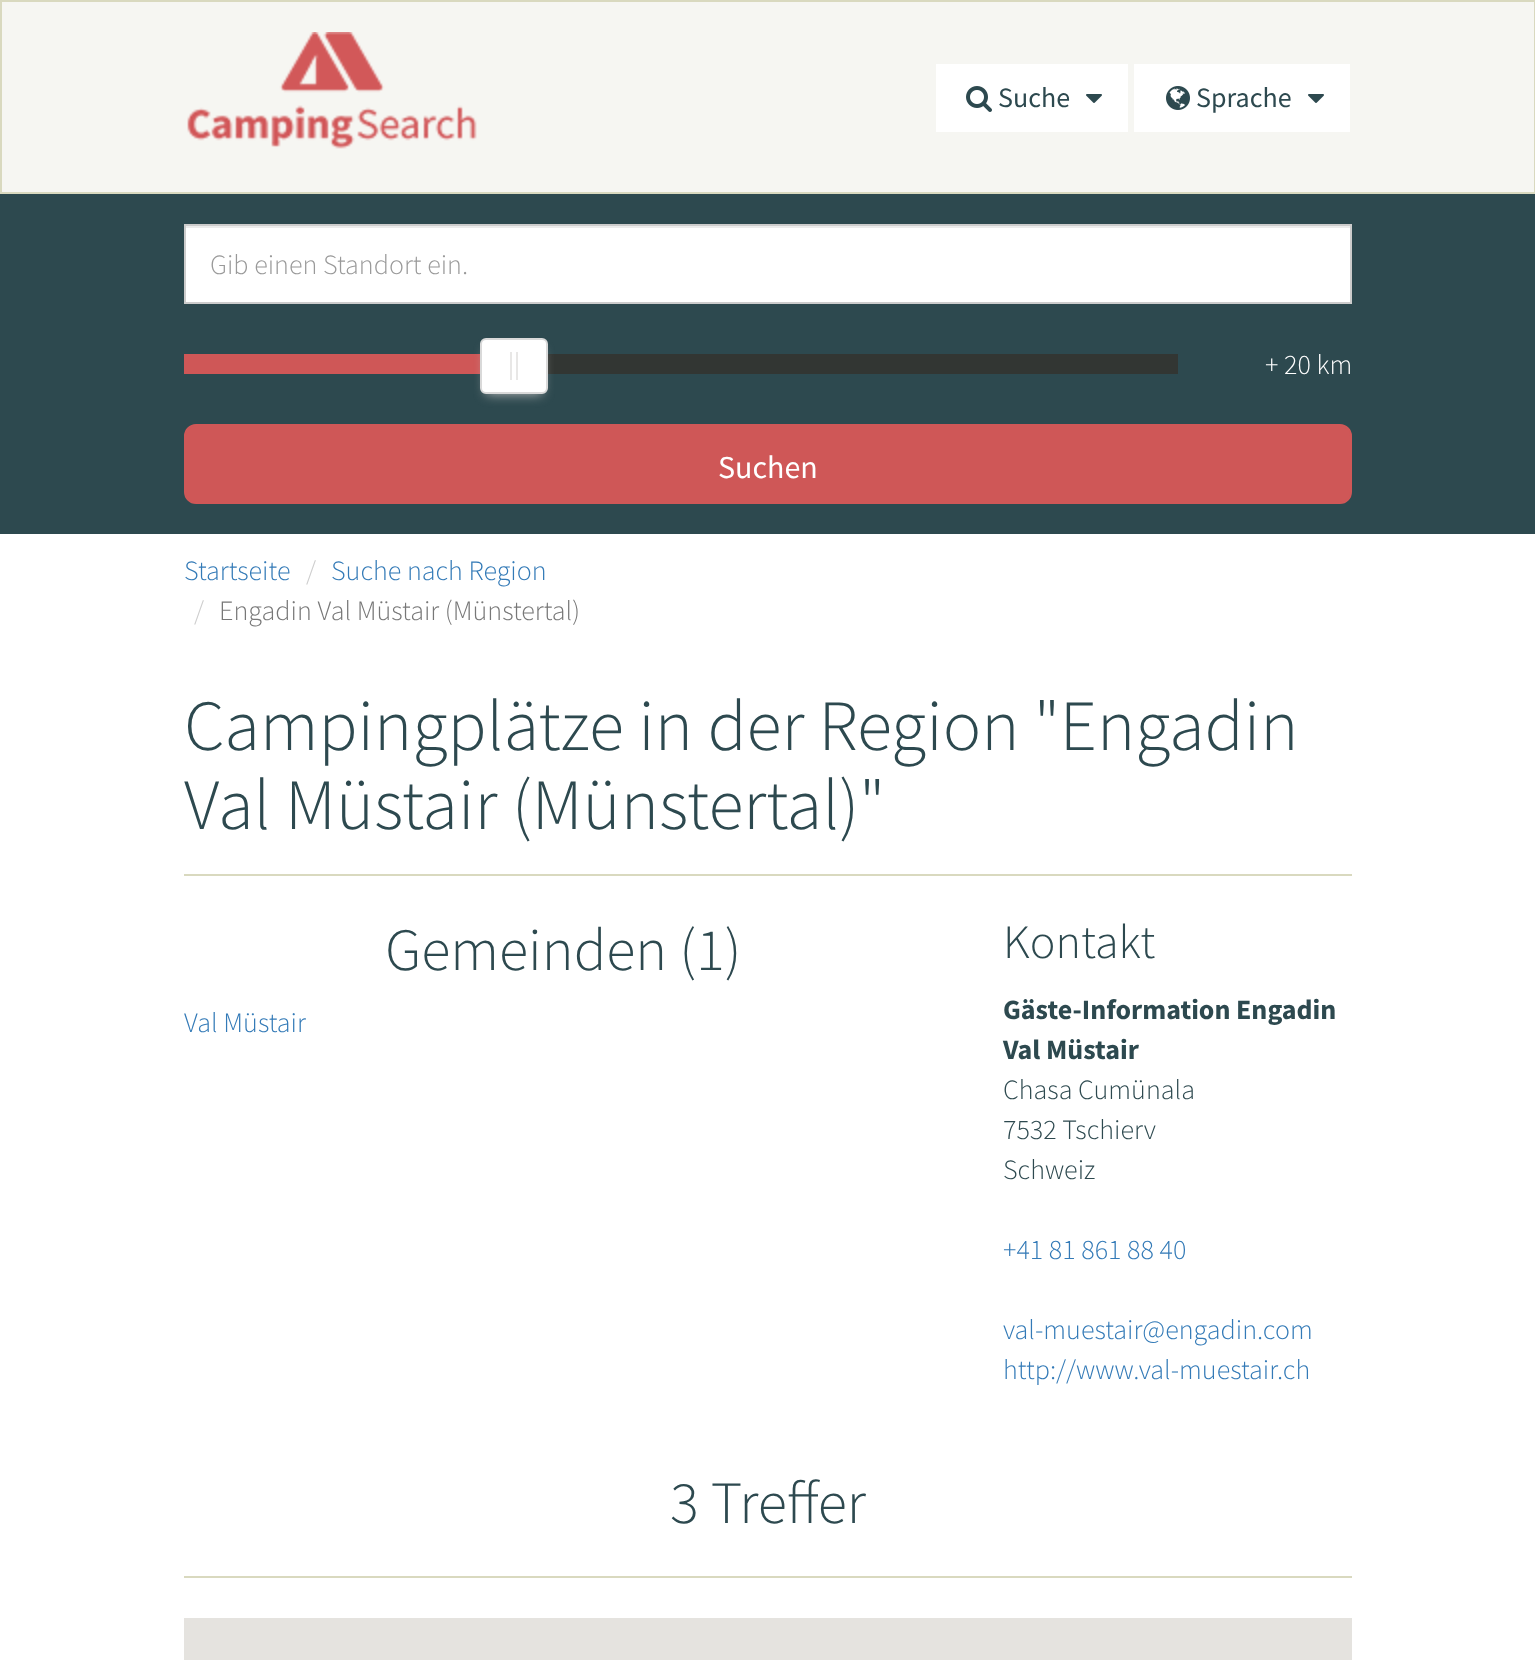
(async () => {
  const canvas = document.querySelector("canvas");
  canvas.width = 1535;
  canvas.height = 1660;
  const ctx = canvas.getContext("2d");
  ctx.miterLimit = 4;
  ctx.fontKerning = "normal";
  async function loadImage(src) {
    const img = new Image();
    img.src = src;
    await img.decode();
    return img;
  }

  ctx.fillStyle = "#ffffff";
  ctx.fillRect(0, 0, 1535, 1660);
  ctx.fillStyle = "#f6f6f2";
  ctx.beginPath();
  ctx.rect(1, 1, 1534, 192);
  ctx.fill();
  ctx.strokeStyle = "#d9d9bf";
  ctx.lineWidth = 2;
  ctx.stroke();
  ctx.drawImage(await loadImage("img/1.png"), 187, 32, 290, 117);
  ctx.fillStyle = "#ffffff";
  ctx.fillRect(936, 64, 192, 68);
  ctx.drawImage(await loadImage("img/2.png"), 966, 86, 26, 26);
  ctx.drawImage(await loadImage("img/3.png"), 1086, 94, 16, 9);
  ctx.fillRect(1134, 64, 216, 68);
  ctx.drawImage(await loadImage("img/4.png"), 1166, 86, 24, 24);
  ctx.drawImage(await loadImage("img/3.png"), 1308, 94, 16, 9);
  for (const [x, y, w, h, color] of [
    [0, 194, 1535, 340, "#2d494f"],
    [186, 228, 1164, 74, "#ffffff"],
    [186, 226, 1164, 2, "#ececec"],
  ]) {
    ctx.fillStyle = color;
    ctx.fillRect(x, y, w, h);
  }
  ctx.strokeStyle = "#cccccc";
  ctx.strokeRect(185, 225, 1166, 78);
  ctx.fillStyle = "#cf5757";
  ctx.fillRect(184, 354, 296, 20);
  ctx.fillStyle = "#323633";
  ctx.fillRect(548, 354, 630, 20);
  ctx.fillStyle = "#bbbbbb";
  ctx.filter = "blur(6px)";
  ctx.beginPath();
  ctx.rect(486, 350, 56, 44);
  ctx.fill();
  ctx.filter = "none";
  ctx.fillStyle = "#ffffff";
  ctx.beginPath();
  ctx.roundRect(481, 339, 66, 54, 5);
  ctx.fill();
  ctx.strokeStyle = "#d9d9d9";
  ctx.stroke();
  ctx.fillStyle = "#e8e7e6";
  ctx.fillRect(510, 352, 2, 28);
  ctx.fillRect(516, 352, 2, 28);
  ctx.fillStyle = "#cf5757";
  ctx.beginPath();
  ctx.roundRect(185, 425, 1166, 78, 11);
  ctx.fill();
  ctx.strokeStyle = "#cf5757";
  ctx.stroke();
  for (const [x, y, w, h, color] of [
    [184, 874, 1168, 2, "#d9d9bf"],
    [184, 1576, 1168, 2, "#d9d9bf"],
    [184, 1618, 1168, 42, "#e5e3df"],
  ]) {
    ctx.fillStyle = color;
    ctx.fillRect(x, y, w, h);
  }
  ctx.font = "28px Source Sans Pro";
  ctx.fillStyle = "#2d494f";
  ctx.fillText("Suche", 998, 107);
  ctx.fillText("Sprache", 1196, 107);
  ctx.font = "300 28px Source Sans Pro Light";
  ctx.fillStyle = "#999999";
  ctx.fillText("Gib einen Standort ein.", 210, 274);
  ctx.fillStyle = "#ffffff";
  ctx.fillText("+ 20 km", 1265, 374);
  ctx.font = "32px Source Sans Pro";
  ctx.fillText("Suchen", 718, 478);
  ctx.font = "300 28px Source Sans Pro Light";
  ctx.fillStyle = "#337ab7";
  ctx.fillText("Startseite", 184, 580);
  ctx.fillStyle = "#cccccc";
  ctx.fillText("/", 306, 580);
  ctx.fillStyle = "#337ab7";
  ctx.fillText("Suche nach Region", 331, 580);
  ctx.fillStyle = "#cccccc";
  ctx.fillText("/", 194, 620);
  ctx.fillStyle = "#777777";
  ctx.fillText("Engadin Val Müstair (Münstertal)", 219, 620);
  ctx.font = "300 72px Source Sans Pro Light";
  ctx.fillStyle = "#2d494f";
  ctx.fillText("Campingplätze in der Region \"Engadin", 184, 750);
  ctx.fillText("Val Müstair (Münstertal)\"", 184, 829);
  ctx.font = "300 60px Source Sans Pro Light";
  ctx.fillText("Gemeinden (1)", 385, 970);
  ctx.font = "300 28px Source Sans Pro Light";
  ctx.fillStyle = "#337ab7";
  ctx.fillText("Val Müstair", 184, 1032);
  ctx.font = "300 48px Source Sans Pro Light";
  ctx.fillStyle = "#2d494f";
  ctx.fillText("Kontakt", 1003, 958);
  ctx.font = "bold 28px Source Sans Pro";
  ctx.fillText("Gäste-Information Engadin", 1003, 1019);
  ctx.fillText("Val Müstair", 1003, 1059);
  ctx.font = "300 28px Source Sans Pro Light";
  for (const [text, x, y] of [
    ["Chasa Cumünala", 1003, 1099],
    ["7532 Tschierv", 1003, 1139],
    ["Schweiz", 1003, 1179],
  ]) {
    ctx.fillText(text, x, y);
  }
  ctx.fillStyle = "#337ab7";
  for (const [text, x, y] of [
    ["+41 81 861 88 40", 1003, 1259],
    ["val-muestair@engadin.com", 1003, 1339],
    ["http://www.val-muestair.ch", 1003, 1379],
  ]) {
    ctx.fillText(text, x, y);
  }
  ctx.font = "300 60px Source Sans Pro Light";
  ctx.fillStyle = "#2d494f";
  ctx.fillText("3 Treffer", 670, 1523);
})();
